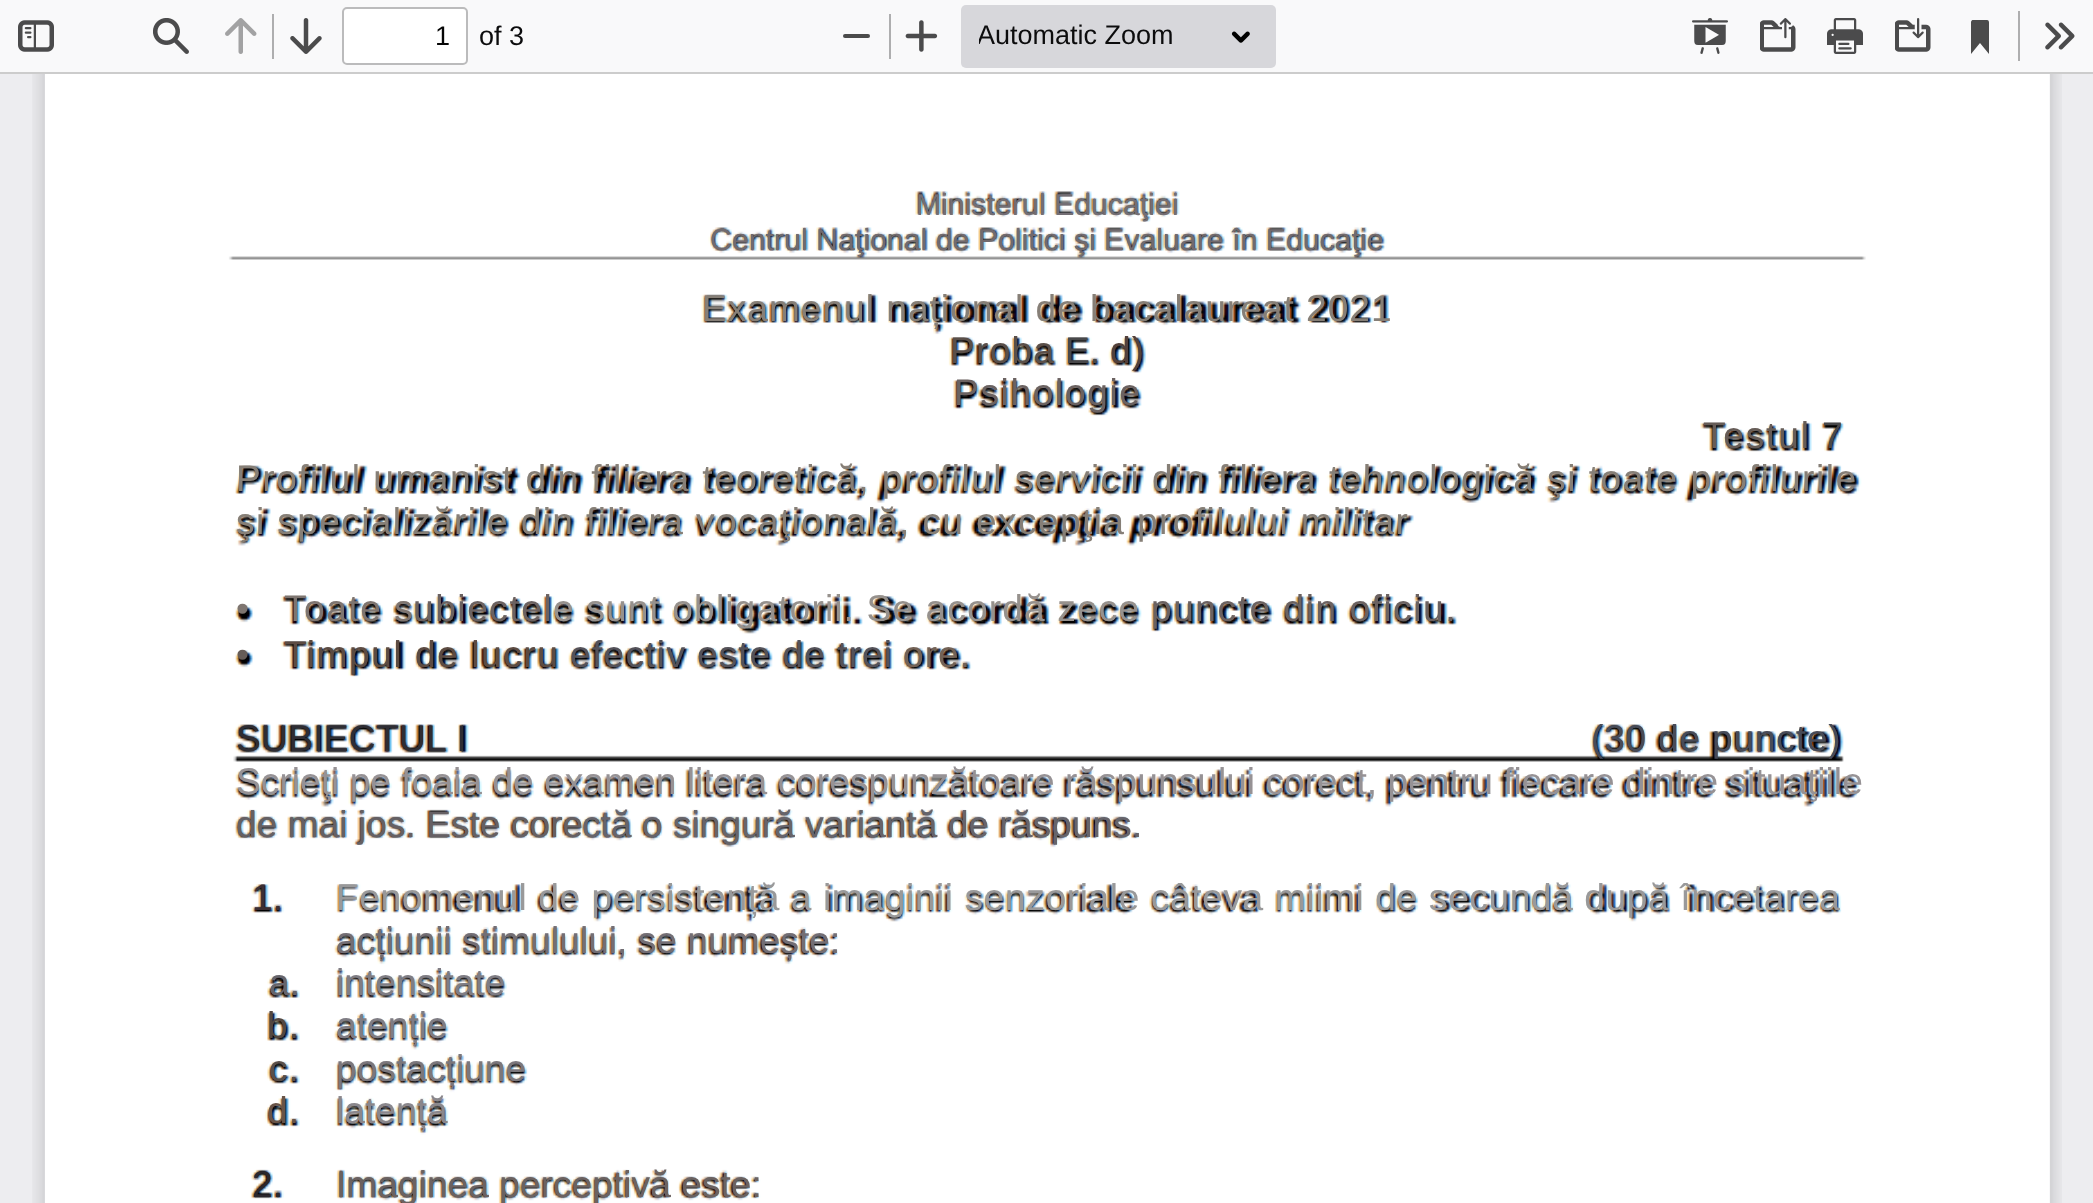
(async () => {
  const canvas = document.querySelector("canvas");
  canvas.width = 2093;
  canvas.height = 1203;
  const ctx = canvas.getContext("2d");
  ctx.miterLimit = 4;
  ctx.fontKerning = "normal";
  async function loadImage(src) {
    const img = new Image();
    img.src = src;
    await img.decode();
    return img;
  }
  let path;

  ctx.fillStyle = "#ededf0";
  ctx.fillRect(0, 0, 2093, 1203);
  ctx.fillStyle = "#cccccc";
  path = new Path2D("M0 72V74H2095V2V72Z");
  ctx.fill(path);
  ctx.fillStyle = "#f9f9fa";
  ctx.fillRect(0, 0, 2093, 72);
  ctx.drawImage(await loadImage("img/1.png"), 18, 20, 36, 32);
  ctx.drawImage(await loadImage("img/2.png"), 153, 18, 36, 36);
  ctx.drawImage(await loadImage("img/3.png"), 225, 18, 32, 36);
  ctx.fillStyle = "#aeaeaf";
  ctx.fillRect(272, 14, 2, 45);
  ctx.drawImage(await loadImage("img/4.png"), 290, 18, 32, 36);
  ctx.fillStyle = "#ffffff";
  ctx.beginPath();
  ctx.roundRect(344, 9, 122, 54, 2);
  ctx.fill();
  ctx.beginPath();
  ctx.roundRect(343, 8, 124, 56, 4);
  ctx.strokeStyle = "#bbbbbc";
  ctx.lineWidth = 2;
  ctx.stroke();
  ctx.fillStyle = "#4b4b4b";
  ctx.beginPath();
  ctx.roundRect(843, 34, 27, 4, 2);
  ctx.fill();
  ctx.fillStyle = "#aeaeaf";
  ctx.fillRect(889, 14, 2, 45);
  ctx.drawImage(await loadImage("img/5.png"), 905, 20, 33, 32);
  ctx.fillStyle = "#d7d7db";
  ctx.beginPath();
  ctx.roundRect(961, 5, 315, 63, 5);
  ctx.fill();
  ctx.drawImage(await loadImage("img/6.png"), 1231, 31, 19, 12);
  ctx.drawImage(await loadImage("img/7.png"), 1692, 18, 36, 36);
  ctx.drawImage(await loadImage("img/8.png"), 1760, 18, 36, 34);
  ctx.drawImage(await loadImage("img/9.png"), 1827, 18, 36, 36);
  ctx.drawImage(await loadImage("img/10.png"), 1895, 18, 36, 34);
  ctx.fillStyle = "#4b4b4b";
  path = new Path2D("M1971 54V22.5C1971 22.5 1971 20 1973 20H1987C1987 20 1989 20 1989 22.5V54L1980 43Z");
  ctx.fill(path);
  ctx.fillStyle = "#aeaeaf";
  ctx.fillRect(2018, 11, 2, 50);
  ctx.drawImage(await loadImage("img/11.png"), 2045, 22, 30, 28);
  ctx.drawImage(await loadImage("img/12.png"), 32, 74, 2030, 1129);
  ctx.drawImage(await loadImage("img/13.png"), 45, 74, 2005, 1129);
  ctx.font = "27px Liberation Sans";
  ctx.fillStyle = "#060606";
  ctx.fillText("1", 435, 45);
  ctx.fillStyle = "#0c0c0d";
  ctx.fillText("of 3", 479, 45);
  ctx.save();
  ctx.beginPath();
  ctx.rect(979, 18, 310, 36);
  ctx.clip();
  ctx.fillText("Automatic Zoom", 977, 44);
  ctx.restore();
  ctx.font = "30.3px Liberation Sans";
  ctx.fillStyle = "#736e74";
  ctx.fillText("Ministerul Educaţiei", 916, 215);
  ctx.fillStyle = "#716a6e";
  ctx.fillText("Centrul Naţional de Politici şi Evaluare în Educaţie", 710, 250);
  ctx.letterSpacing = "0.95px";
  ctx.font = "37.2px Liberation Sans";
  ctx.fillStyle = "#867f77";
  ctx.fillText("Examenul național de bacalaureat 2021", 702, 321);
  ctx.letterSpacing = "1.25px";
  ctx.fillStyle = "#5a4f49";
  ctx.fillText("Proba", 950, 363);
  ctx.letterSpacing = "0px";
  ctx.fillStyle = "#48484a";
  ctx.fillText("E.", 1065, 363);
  ctx.letterSpacing = "1px";
  ctx.fillStyle = "#53413b";
  ctx.fillText("d)", 1110, 363);
  ctx.letterSpacing = "1.6px";
  ctx.fillStyle = "#6b6261";
  ctx.fillText("Psihologie", 954, 405);
  ctx.letterSpacing = "1.75px";
  ctx.fillStyle = "#665c57";
  ctx.fillText("Testul", 1703, 448);
  ctx.letterSpacing = "0px";
  ctx.fillStyle = "#48484a";
  ctx.fillText("7", 1822, 448);
  ctx.letterSpacing = "1.47px";
  ctx.fillStyle = "#867f77";
  ctx.fillText("Profilul umanist din filiera teoretică, profilul servicii din filiera tehnologică şi toate profilurile", 236, 491);
  ctx.letterSpacing = "1.35px";
  ctx.fillText("şi specializările din filiera vocaţională, cu excepţia profilului militar", 236, 534);
  ctx.letterSpacing = "0px";
  ctx.fillStyle = "#7e7570";
  ctx.fillText("•", 236, 621);
  ctx.letterSpacing = "1.5px";
  ctx.fillText("Toate s", 284, 621);
  ctx.fillStyle = "#6b6261";
  ctx.fillText("ubiectel", 413, 621);
  ctx.letterSpacing = "1.1px";
  ctx.fillStyle = "#96918d";
  ctx.fillText("e sunt obligatorii. Se acordă zece", 553, 621);
  ctx.letterSpacing = "1.5px";
  ctx.fillStyle = "#6b6261";
  ctx.fillText("puncte din oficiu.", 1151, 621);
  ctx.letterSpacing = "0px";
  ctx.fillStyle = "#665c57";
  ctx.fillText("•", 236, 667);
  ctx.letterSpacing = "1.5px";
  ctx.fillStyle = "#5c4b42";
  ctx.fillText("Timpul de lucru", 284, 667);
  ctx.letterSpacing = "1.25px";
  ctx.fillStyle = "#545259";
  ctx.fillText("efectiv", 570, 667);
  ctx.letterSpacing = "1px";
  ctx.fillText("este de trei", 697, 667);
  ctx.fillStyle = "#736256";
  ctx.fillText("ore.", 903, 667);
  ctx.letterSpacing = "0.25px";
  ctx.fillStyle = "#2e2d34";
  ctx.fillText("SUBIECTUL I", 236, 751);
  ctx.letterSpacing = "0.75px";
  ctx.fillStyle = "#474b58";
  ctx.fillText("(30 de puncte)", 1591, 751);
  ctx.letterSpacing = "0px";
  ctx.fillStyle = "#969295";
  ctx.fillText("Scrieţi pe foaia de examen litera corespunzătoare răspunsului corect, pentru fiecare dintre situaţiile", 236, 794);
  ctx.fillStyle = "#656064";
  ctx.fillText("de mai jos. Este core", 236, 837);
  ctx.fillStyle = "#66646b";
  ctx.fillText("ctă o singură variantă de răspuns.", 582, 837);
  ctx.fillStyle = "#3c2e34";
  ctx.fillText("1.", 252, 910);
  ctx.letterSpacing = "0.58px";
  ctx.fillStyle = "#99999a";
  ctx.fillText("Fenomenul de persistență a imaginii senzoriale câteva miimi de secundă după încetarea", 336, 910);
  ctx.letterSpacing = "0px";
  ctx.fillStyle = "#736e74";
  ctx.fillText("acțiunii stimulului, se numește:", 336, 953);
  ctx.fillStyle = "#66646b";
  ctx.fillText("a.", 269, 995);
  ctx.fillStyle = "#7f7d84";
  ctx.fillText("intensitate", 336, 995);
  ctx.letterSpacing = "1px";
  ctx.fillStyle = "#534740";
  ctx.fillText("b.", 267, 1038);
  ctx.letterSpacing = "0px";
  ctx.fillStyle = "#7f7d84";
  ctx.fillText("atenție", 336, 1038);
  ctx.letterSpacing = "1px";
  ctx.fillStyle = "#5a4f49";
  ctx.fillText("c.", 269, 1081);
  ctx.letterSpacing = "0px";
  ctx.fillStyle = "#7b777c";
  ctx.fillText("postacțiune", 336, 1081);
  ctx.letterSpacing = "1px";
  ctx.fillStyle = "#695447";
  ctx.fillText("d.", 267, 1123);
  ctx.letterSpacing = "0px";
  ctx.fillStyle = "#8a878c";
  ctx.fillText("latență", 336, 1123);
  ctx.fillStyle = "#2b272c";
  ctx.fillText("2.", 252, 1197);
  ctx.fillStyle = "#6b6261";
  ctx.fillText("Imaginea perceptivă este:", 336, 1197);
})();
